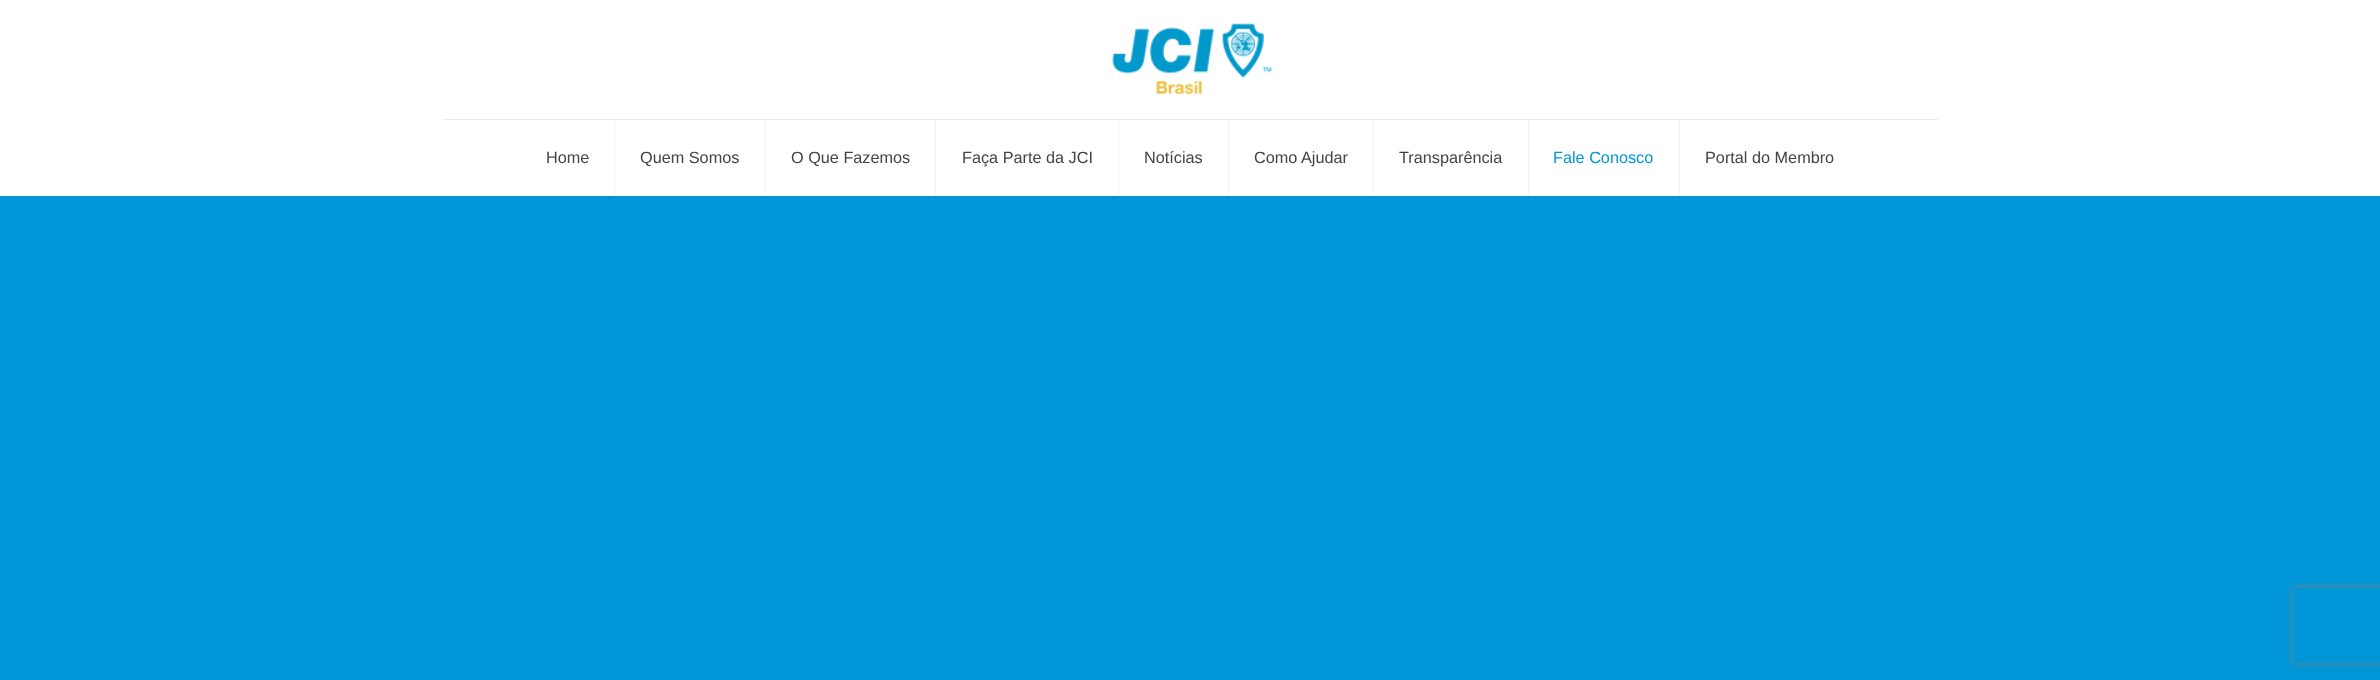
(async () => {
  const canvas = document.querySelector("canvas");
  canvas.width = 2380;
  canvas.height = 680;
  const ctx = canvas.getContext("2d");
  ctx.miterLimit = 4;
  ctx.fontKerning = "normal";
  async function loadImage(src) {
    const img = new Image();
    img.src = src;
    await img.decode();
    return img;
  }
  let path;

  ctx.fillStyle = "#0096d7";
  ctx.fillRect(0, 0, 2380, 680);
  ctx.fillStyle = "#ffffff";
  ctx.fillRect(0, 0, 2380, 196);
  ctx.fillStyle = "#ebebeb";
  ctx.fillRect(443, 119, 1495, 1);
  ctx.drawImage(await loadImage("img/1.png"), 1112, 23, 160, 71);
  for (const [x, y, w, h, color] of [
    [614, 120, 1, 75, "#f2f2f2"],
    [765, 120, 1, 75, "#f2f2f2"],
    [935, 120, 1, 75, "#f2f2f2"],
    [1118, 120, 1, 75, "#f2f2f2"],
    [1228, 120, 1, 75, "#f2f2f2"],
    [1373, 120, 1, 75, "#f2f2f2"],
    [1528, 120, 1, 75, "#f2f2f2"],
    [1679, 120, 1, 75, "#f2f2f2"],
  ]) {
    ctx.fillStyle = color;
    ctx.fillRect(x, y, w, h);
  }
  ctx.save();
  path = new Path2D("M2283 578H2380V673H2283ZM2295.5 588H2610.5C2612 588 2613 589 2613 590.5V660.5C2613 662 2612 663 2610.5 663H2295.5C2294 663 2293 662 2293 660.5V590.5C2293 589 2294 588 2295.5 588Z");
  ctx.clip(path, "evenodd");
  ctx.fillStyle = "#808080";
  ctx.filter = "blur(3px)";
  ctx.beginPath();
  ctx.roundRect(2293, 588, 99, 75, 2.5);
  ctx.fill();
  ctx.filter = "none";
  ctx.restore();
  ctx.font = "16.25px Arimo";
  ctx.fillStyle = "#444444";
  for (const [text, x, y] of [
    ["Home", 546, 163],
    ["Quem Somos", 640, 163],
    ["O Que Fazemos", 791, 163],
    ["Faça Parte da JCI", 962, 163],
    ["Notícias", 1144, 163],
    ["Como Ajudar", 1254, 163],
    ["Transparência", 1399, 163],
  ]) {
    ctx.fillText(text, x, y);
  }
  ctx.fillStyle = "#0096d7";
  ctx.fillText("Fale Conosco", 1553, 163);
  ctx.fillStyle = "#444444";
  ctx.fillText("Portal do Membro", 1705, 163);
})();
